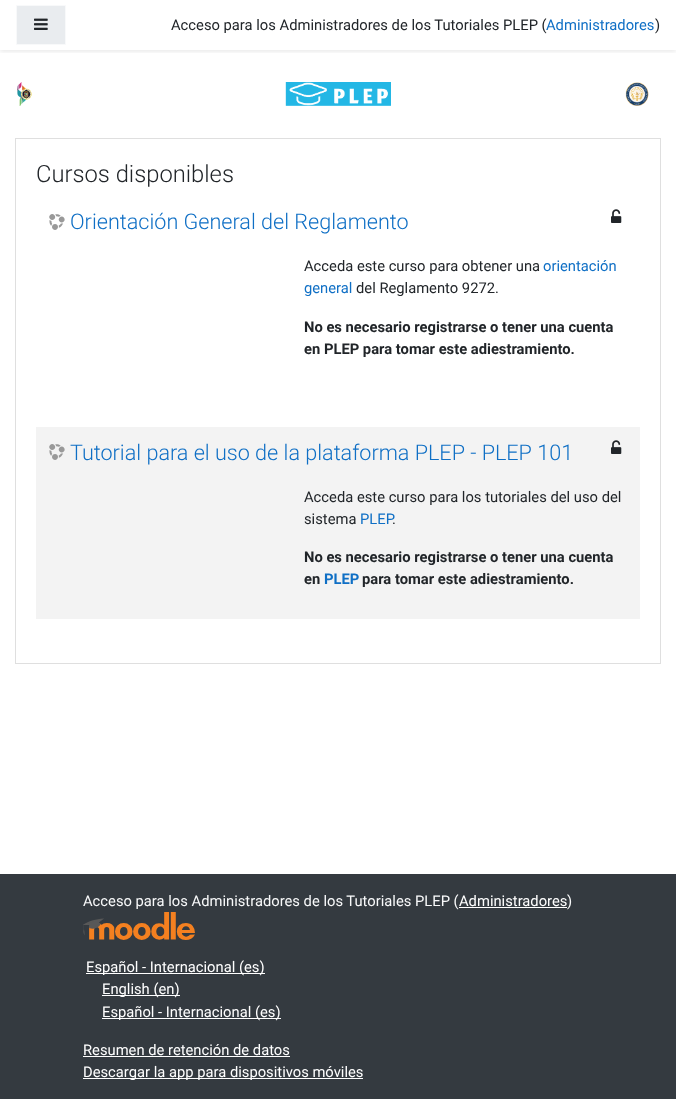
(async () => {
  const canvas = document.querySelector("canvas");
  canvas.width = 676;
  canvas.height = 1099;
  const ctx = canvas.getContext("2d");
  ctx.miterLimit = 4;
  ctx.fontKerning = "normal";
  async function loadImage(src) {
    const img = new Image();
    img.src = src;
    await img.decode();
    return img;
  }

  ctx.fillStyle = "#ffffff";
  ctx.fillRect(0, 0, 676, 1099);
  ctx.save();
  ctx.beginPath();
  ctx.rect(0, 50, 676, 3);
  ctx.clip();
  ctx.fillStyle = "rgba(0, 0, 0, 0.08)";
  ctx.filter = "blur(2px)";
  ctx.beginPath();
  ctx.rect(0, 2, 676, 50);
  ctx.fill();
  ctx.filter = "none";
  ctx.restore();
  ctx.fillStyle = "#e9ecef";
  ctx.beginPath();
  ctx.rect(16.5, 5.5, 49, 39);
  ctx.fill();
  ctx.strokeStyle = "#f8f9fa";
  ctx.stroke();
  ctx.drawImage(await loadImage("img/1.png"), 34, 18, 14, 12);
  ctx.drawImage(await loadImage("img/2.png"), 17, 82, 632, 24);
  ctx.strokeStyle = "#dfdfdf";
  ctx.strokeRect(15.5, 138.5, 645, 525);
  ctx.drawImage(await loadImage("img/3.png"), 49, 214, 16, 16);
  ctx.drawImage(await loadImage("img/4.png"), 611, 209, 11, 14);
  ctx.fillStyle = "#f3f3f3";
  ctx.fillRect(36, 427, 604, 192);
  ctx.drawImage(await loadImage("img/5.png"), 49, 444, 16, 16);
  ctx.drawImage(await loadImage("img/6.png"), 611, 440, 11, 14);
  ctx.fillStyle = "#343a40";
  ctx.fillRect(0, 874, 676, 225);
  ctx.fillStyle = "#ffffff";
  ctx.fillRect(459, 907, 108, 1);
  ctx.drawImage(await loadImage("img/7.png"), 83, 912, 112, 28);
  for (const [x, y, w, h, color] of [
    [86, 973, 179, 1, "#ffffff"],
    [102, 995, 78, 1, "#ffffff"],
    [102, 1018, 179, 1, "#ffffff"],
    [83, 1056, 207, 1, "#ffffff"],
    [83, 1078, 280, 1, "#ffffff"],
  ]) {
    ctx.fillStyle = color;
    ctx.fillRect(x, y, w, h);
  }
  ctx.font = "14.75px Roboto";
  ctx.fillStyle = "#212529";
  ctx.fillText("Acceso para los Administradores de los Tutoriales PLEP (", 171, 30);
  ctx.fillStyle = "#0f6fc5";
  ctx.fillText("Administradores", 546, 30);
  ctx.fillStyle = "#212529";
  ctx.fillText(")", 655, 30);
  ctx.font = "300 23.75px Roboto";
  ctx.fillText("Cursos disponibles", 36, 182);
  ctx.font = "300 21.6px Roboto";
  ctx.fillStyle = "#0f6fc5";
  ctx.fillText("Orientación General del Reglamento", 70, 229);
  ctx.font = "14.75px Roboto";
  ctx.fillStyle = "#212529";
  ctx.fillText("Acceda este curso para obtener una", 304, 271);
  ctx.fillStyle = "#0f6fc5";
  ctx.fillText("orientación", 543, 271);
  ctx.fillText("general", 304, 293);
  ctx.fillStyle = "#212529";
  ctx.fillText("del Reglamento 9272.", 356, 293);
  ctx.font = "bold 14.75px Roboto";
  ctx.fillText("No es necesario registrarse o tener una cuenta", 304, 332);
  ctx.fillText("en PLEP para tomar este adiestramiento.", 304, 354);
  ctx.font = "300 21.6px Roboto";
  ctx.fillStyle = "#0f6fc5";
  ctx.fillText("Tutorial para el uso de la plataforma PLEP - PLEP 101", 70, 460);
  ctx.font = "14.75px Roboto";
  ctx.fillStyle = "#212529";
  ctx.fillText("Acceda este curso para los tutoriales del uso del", 304, 502);
  ctx.fillText("sistema", 304, 524);
  ctx.fillStyle = "#0f6fc5";
  ctx.fillText("PLEP", 360, 524);
  ctx.fillStyle = "#212529";
  ctx.fillText(".", 392, 524);
  ctx.font = "bold 14.75px Roboto";
  ctx.fillText("No es necesario registrarse o tener una cuenta", 304, 562);
  ctx.fillText("en", 304, 584);
  ctx.fillStyle = "#0f6fc5";
  ctx.fillText("PLEP", 324, 584);
  ctx.fillStyle = "#212529";
  ctx.fillText("para tomar este adiestramiento.", 362, 584);
  ctx.font = "14.75px Roboto";
  ctx.fillStyle = "#f8f9fa";
  ctx.fillText("Acceso para los Administradores de los Tutoriales PLEP (", 83, 906);
  ctx.fillStyle = "#ffffff";
  ctx.fillText("Administradores", 459, 906);
  ctx.fillStyle = "#f8f9fa";
  ctx.fillText(")", 567, 906);
  ctx.fillStyle = "#ffffff";
  for (const [text, x, y] of [
    ["Español - Internacional (es)", 86, 972],
    ["English (en)", 102, 994],
    ["Español - Internacional (es)", 102, 1017],
    ["Resumen de retención de datos", 83, 1055],
    ["Descargar la app para dispositivos móviles", 83, 1077],
  ]) {
    ctx.fillText(text, x, y);
  }
})();
